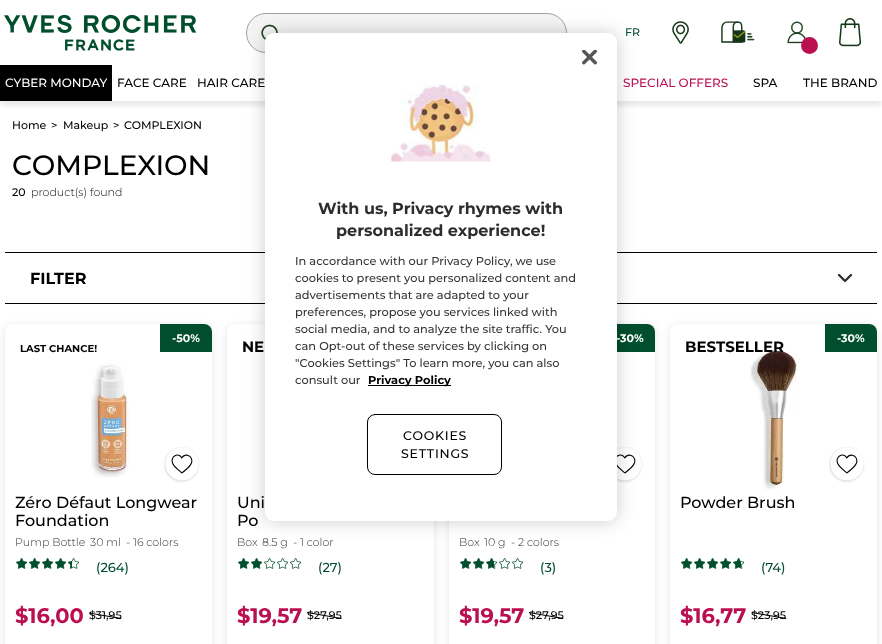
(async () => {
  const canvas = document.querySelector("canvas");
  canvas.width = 882;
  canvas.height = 644;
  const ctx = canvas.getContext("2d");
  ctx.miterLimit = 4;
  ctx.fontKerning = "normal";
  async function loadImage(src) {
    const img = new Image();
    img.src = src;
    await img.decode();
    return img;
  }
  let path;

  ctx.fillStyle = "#ffffff";
  ctx.fillRect(0, 0, 882, 644);
  ctx.drawImage(await loadImage("img/1.png"), 4, 14, 193, 37);
  ctx.fillStyle = "#f4f4f4";
  ctx.beginPath();
  ctx.roundRect(246.5, 13.5, 320, 39, 19.5);
  ctx.fill();
  ctx.strokeStyle = "#a1a1a1";
  ctx.stroke();
  ctx.drawImage(await loadImage("img/2.png"), 261, 24, 17, 16);
  ctx.drawImage(await loadImage("img/3.png"), 672, 21, 17, 23);
  ctx.drawImage(await loadImage("img/4.png"), 721, 21, 34, 22);
  ctx.drawImage(await loadImage("img/5.png"), 787, 21, 19, 23);
  ctx.fillStyle = "#ba1051";
  ctx.beginPath();
  ctx.arc(809.5, 45.5, 7.5, 0, Math.PI * 2);
  ctx.fill();
  ctx.strokeStyle = "#ba1051";
  ctx.lineWidth = 2;
  ctx.stroke();
  ctx.drawImage(await loadImage("img/6.png"), 839, 18, 22, 29);
  ctx.save();
  ctx.beginPath();
  ctx.rect(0, 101, 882, 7);
  ctx.clip();
  ctx.fillStyle = "rgba(0, 0, 0, 0.1)";
  ctx.filter = "blur(3px)";
  ctx.beginPath();
  ctx.rect(0, 69, 882, 36);
  ctx.fill();
  ctx.filter = "none";
  ctx.restore();
  for (const [x, y, w, h, color] of [
    [0, 65, 112, 36, "#000000"],
    [5, 252, 872, 1, "#000000"],
    [5, 303, 872, 1, "#000000"],
  ]) {
    ctx.fillStyle = color;
    ctx.fillRect(x, y, w, h);
  }
  path = new Path2D("M851 275L845 281L839 275");
  ctx.strokeStyle = "#2d2d2d";
  ctx.lineWidth = 2.3;
  ctx.lineCap = "round";
  ctx.lineJoin = "round";
  ctx.stroke(path);
  ctx.fillStyle = "rgba(0, 0, 0, 0.11)";
  ctx.filter = "blur(4px)";
  ctx.beginPath();
  ctx.roundRect(5, 326, 207, 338, 8);
  ctx.fill();
  ctx.filter = "none";
  ctx.fillStyle = "#ffffff";
  ctx.beginPath();
  ctx.roundRect(5, 324, 207, 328, 8);
  ctx.fill();
  ctx.fillStyle = "#014e2e";
  ctx.beginPath();
  ctx.roundRect(160, 324, 52, 28, [0, 8, 0, 0]);
  ctx.fill();
  ctx.drawImage(await loadImage("img/7.png"), 91, 363, 38, 115);
  ctx.drawImage(await loadImage("img/8.png"), 164, 447, 36, 36);
  ctx.drawImage(await loadImage("img/9.png"), 16, 558, 12, 11);
  ctx.drawImage(await loadImage("img/9.png"), 29, 558, 12, 11);
  ctx.drawImage(await loadImage("img/9.png"), 42, 558, 12, 11);
  ctx.drawImage(await loadImage("img/9.png"), 55, 558, 12, 11);
  ctx.drawImage(await loadImage("img/9.png"), 68, 558, 12, 11);
  ctx.drawImage(await loadImage("img/10.png"), 16, 558, 11, 11);
  ctx.drawImage(await loadImage("img/10.png"), 29, 558, 11, 11);
  ctx.drawImage(await loadImage("img/10.png"), 42, 558, 11, 11);
  ctx.drawImage(await loadImage("img/10.png"), 55, 558, 11, 11);
  ctx.drawImage(await loadImage("img/11.png"), 68, 561, 4, 8);
  ctx.fillStyle = "#000000";
  path = new Path2D("M121 619L89 613.5V612.5L121.5 618Z");
  ctx.fill(path);
  ctx.fillStyle = "rgba(0, 0, 0, 0.11)";
  ctx.filter = "blur(4px)";
  ctx.beginPath();
  ctx.roundRect(227, 326, 207, 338, 8);
  ctx.fill();
  ctx.filter = "none";
  ctx.fillStyle = "#ffffff";
  ctx.beginPath();
  ctx.roundRect(227, 324, 207, 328, 8);
  ctx.fill();
  ctx.drawImage(await loadImage("img/9.png"), 238, 558, 12, 11);
  ctx.drawImage(await loadImage("img/9.png"), 251, 558, 12, 11);
  ctx.drawImage(await loadImage("img/9.png"), 264, 558, 12, 11);
  ctx.drawImage(await loadImage("img/9.png"), 277, 558, 12, 11);
  ctx.drawImage(await loadImage("img/9.png"), 290, 558, 12, 11);
  ctx.drawImage(await loadImage("img/10.png"), 238, 558, 11, 11);
  ctx.drawImage(await loadImage("img/10.png"), 251, 558, 11, 11);
  ctx.fillStyle = "#000000";
  path = new Path2D("M341.5 619L307 613L307.5 612L341.5 618Z");
  ctx.fill(path);
  ctx.fillStyle = "rgba(0, 0, 0, 0.11)";
  ctx.filter = "blur(4px)";
  ctx.beginPath();
  ctx.roundRect(449, 326, 206, 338, 8);
  ctx.fill();
  ctx.filter = "none";
  ctx.fillStyle = "#ffffff";
  ctx.beginPath();
  ctx.roundRect(449, 324, 206, 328, 8);
  ctx.fill();
  ctx.fillStyle = "#014e2e";
  ctx.beginPath();
  ctx.roundRect(604, 324, 51, 28, [0, 8, 0, 0]);
  ctx.fill();
  ctx.drawImage(await loadImage("img/12.png"), 617, 447, 26, 36);
  ctx.drawImage(await loadImage("img/9.png"), 460, 558, 12, 11);
  ctx.drawImage(await loadImage("img/9.png"), 473, 558, 12, 11);
  ctx.drawImage(await loadImage("img/9.png"), 486, 558, 12, 11);
  ctx.drawImage(await loadImage("img/9.png"), 499, 558, 12, 11);
  ctx.drawImage(await loadImage("img/9.png"), 512, 558, 12, 11);
  ctx.drawImage(await loadImage("img/10.png"), 460, 558, 11, 11);
  ctx.drawImage(await loadImage("img/10.png"), 473, 558, 11, 11);
  ctx.drawImage(await loadImage("img/13.png"), 486, 558, 8, 11);
  ctx.fillStyle = "#000000";
  path = new Path2D("M563 619L529 613V612L563.5 618Z");
  ctx.fill(path);
  ctx.fillStyle = "rgba(0, 0, 0, 0.11)";
  ctx.filter = "blur(4px)";
  ctx.beginPath();
  ctx.roundRect(670, 326, 207, 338, 8);
  ctx.fill();
  ctx.filter = "none";
  ctx.fillStyle = "#ffffff";
  ctx.beginPath();
  ctx.roundRect(670, 324, 207, 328, 8);
  ctx.fill();
  ctx.fillStyle = "#014e2e";
  ctx.beginPath();
  ctx.roundRect(825, 324, 52, 28, [0, 8, 0, 0]);
  ctx.fill();
  ctx.drawImage(await loadImage("img/14.png"), 750, 350, 49, 140);
  ctx.drawImage(await loadImage("img/8.png"), 829, 447, 36, 36);
  ctx.drawImage(await loadImage("img/9.png"), 681, 558, 12, 11);
  ctx.drawImage(await loadImage("img/9.png"), 694, 558, 12, 11);
  ctx.drawImage(await loadImage("img/9.png"), 707, 558, 12, 11);
  ctx.drawImage(await loadImage("img/9.png"), 720, 558, 12, 11);
  ctx.drawImage(await loadImage("img/9.png"), 733, 558, 12, 11);
  ctx.drawImage(await loadImage("img/10.png"), 681, 558, 11, 11);
  ctx.drawImage(await loadImage("img/10.png"), 694, 558, 11, 11);
  ctx.drawImage(await loadImage("img/10.png"), 707, 558, 11, 11);
  ctx.drawImage(await loadImage("img/10.png"), 720, 558, 11, 11);
  ctx.drawImage(await loadImage("img/13.png"), 733, 558, 8, 11);
  ctx.fillStyle = "#000000";
  path = new Path2D("M786 619L751.5 613L752 612L786.5 618Z");
  ctx.fill(path);
  ctx.fillStyle = "rgba(0, 0, 0, 0.2)";
  ctx.filter = "blur(9px)";
  ctx.beginPath();
  ctx.roundRect(265, 33, 352, 488, 9);
  ctx.fill();
  ctx.filter = "none";
  ctx.fillStyle = "#ffffff";
  ctx.beginPath();
  ctx.roundRect(265, 33, 352, 488, 9);
  ctx.fill();
  ctx.drawImage(await loadImage("img/15.png"), 582, 50, 15, 15);
  ctx.drawImage(await loadImage("img/16.png"), 391, 84, 100, 78);
  ctx.fillStyle = "#000000";
  ctx.fillRect(368, 385, 83, 1);
  ctx.beginPath();
  ctx.roundRect(367.5, 414.5, 134, 60, 7.5);
  ctx.strokeStyle = "#000000";
  ctx.lineWidth = 1;
  ctx.lineJoin = "miter";
  ctx.stroke();
  ctx.font = "500 11px Montserrat";
  ctx.fillStyle = "#014e2e";
  ctx.fillText("FR", 625, 36);
  ctx.font = "500 12px Montserrat";
  ctx.fillStyle = "#ffffff";
  ctx.fillText("CYBER MONDAY", 5, 87);
  ctx.fillStyle = "#000000";
  ctx.fillText("FACE CARE", 117, 87);
  ctx.fillText("HAIR CARE", 197, 87);
  ctx.fillStyle = "#ba1051";
  ctx.fillText("SPECIAL OFFERS", 623, 87);
  ctx.fillStyle = "#000000";
  ctx.fillText("SPA", 753, 87);
  ctx.fillText("THE BRAND", 803, 87);
  ctx.font = "500 11px Montserrat";
  for (const [text, x, y] of [
    ["Home", 12, 129],
    [">", 51, 129],
    ["Makeup", 63, 129],
    [">", 113, 129],
    ["COMPLEXION", 124, 129],
  ]) {
    ctx.fillText(text, x, y);
  }
  ctx.font = "500 28px Montserrat";
  ctx.fillText("COMPLEXION", 12, 175);
  ctx.font = "500 11px Montserrat";
  ctx.fillText("20", 12, 196);
  ctx.font = "300 11px Montserrat";
  ctx.fillText("product(s) found", 31, 196);
  ctx.font = "bold 16px Montserrat";
  ctx.fillText("FILTER", 30, 284);
  ctx.font = "bold 11px Montserrat";
  ctx.fillStyle = "#ffffff";
  ctx.fillText("-50%", 172, 342);
  ctx.font = "bold 10px Montserrat";
  ctx.fillStyle = "#000000";
  ctx.fillText("LAST CHANCE!", 20, 352);
  ctx.font = "500 16px Montserrat";
  ctx.fillText("Zéro Défaut Longwear", 15, 508);
  ctx.fillText("Foundation", 15, 526);
  ctx.font = "300 11px Montserrat";
  ctx.fillStyle = "#2d2d2d";
  for (const [text, x, y] of [
    ["Pump Bottle", 15, 546],
    ["30 ml", 90, 546],
    ["- 16 colors", 126, 546],
  ]) {
    ctx.fillText(text, x, y);
  }
  ctx.font = "500 13px Montserrat";
  ctx.fillStyle = "#014e2e";
  ctx.fillText("(264)", 96, 572);
  ctx.font = "bold 21px Montserrat";
  ctx.fillStyle = "#ba1051";
  ctx.fillText("$16,00", 15, 623);
  ctx.font = "500 11px Montserrat";
  ctx.fillStyle = "#000000";
  ctx.fillText("$31,95", 89, 619);
  ctx.font = "bold 15px Montserrat";
  ctx.fillText("NE", 242, 352);
  ctx.font = "500 16px Montserrat";
  ctx.fillText("Uni", 237, 508);
  ctx.fillText("Po", 237, 526);
  ctx.font = "300 11px Montserrat";
  ctx.fillStyle = "#2d2d2d";
  for (const [text, x, y] of [
    ["Box", 237, 546],
    ["8.5 g", 262, 546],
    ["- 1 color", 293, 546],
  ]) {
    ctx.fillText(text, x, y);
  }
  ctx.font = "500 13px Montserrat";
  ctx.fillStyle = "#014e2e";
  ctx.fillText("(27)", 318, 572);
  ctx.font = "bold 21px Montserrat";
  ctx.fillStyle = "#ba1051";
  ctx.fillText("$19,57", 237, 623);
  ctx.font = "500 11px Montserrat";
  ctx.fillStyle = "#000000";
  ctx.fillText("$27,95", 307, 619);
  ctx.font = "bold 11px Montserrat";
  ctx.fillStyle = "#ffffff";
  ctx.fillText("-30%", 616, 342);
  ctx.font = "300 11px Montserrat";
  ctx.fillStyle = "#2d2d2d";
  for (const [text, x, y] of [
    ["Box", 459, 546],
    ["10 g", 484, 546],
    ["- 2 colors", 511, 546],
  ]) {
    ctx.fillText(text, x, y);
  }
  ctx.font = "500 13px Montserrat";
  ctx.fillStyle = "#014e2e";
  ctx.fillText("(3)", 540, 572);
  ctx.font = "bold 21px Montserrat";
  ctx.fillStyle = "#ba1051";
  ctx.fillText("$19,57", 459, 623);
  ctx.font = "500 11px Montserrat";
  ctx.fillStyle = "#000000";
  ctx.fillText("$27,95", 529, 619);
  ctx.font = "bold 11px Montserrat";
  ctx.fillStyle = "#ffffff";
  ctx.fillText("-30%", 837, 342);
  ctx.font = "bold 15px Montserrat";
  ctx.fillStyle = "#000000";
  ctx.fillText("BESTSELLER", 685, 352);
  ctx.font = "500 16px Montserrat";
  ctx.fillText("Powder Brush", 680, 508);
  ctx.font = "500 13px Montserrat";
  ctx.fillStyle = "#014e2e";
  ctx.fillText("(74)", 761, 572);
  ctx.font = "bold 21px Montserrat";
  ctx.fillStyle = "#ba1051";
  ctx.fillText("$16,77", 680, 623);
  ctx.font = "500 11px Montserrat";
  ctx.fillStyle = "#000000";
  ctx.fillText("$23,95", 751, 619);
  ctx.font = "bold 16px Montserrat";
  ctx.fillStyle = "#2d2d2d";
  ctx.fillText("With us, Privacy rhymes with", 318, 214);
  ctx.fillText("personalized experience!", 336, 236);
  ctx.font = "500 11.4px Montserrat";
  ctx.fillStyle = "#333333";
  for (const [text, x, y] of [
    ["In accordance with our Privacy Policy, we use", 295, 265],
    ["cookies to present you personalized content and", 295, 282],
    ["advertisements that are adapted to your", 295, 299],
    ["preferences, propose you services linked with", 295, 316],
    ["social media, and to analyze the site traffic. You", 295, 333],
    ["can Opt-out of these services by clicking on", 295, 350],
    ["\"Cookies Settings\" To learn more, you can also", 295, 367],
    ["consult our", 295, 384],
  ]) {
    ctx.fillText(text, x, y);
  }
  ctx.font = "bold 11.4px Montserrat";
  ctx.fillStyle = "#000000";
  ctx.fillText("Privacy Policy", 368, 384);
  ctx.letterSpacing = "0.75px";
  ctx.font = "500 12.5px Montserrat";
  ctx.fillText("COOKIES", 403, 440);
  ctx.fillText("SETTINGS", 401, 458);
})();
